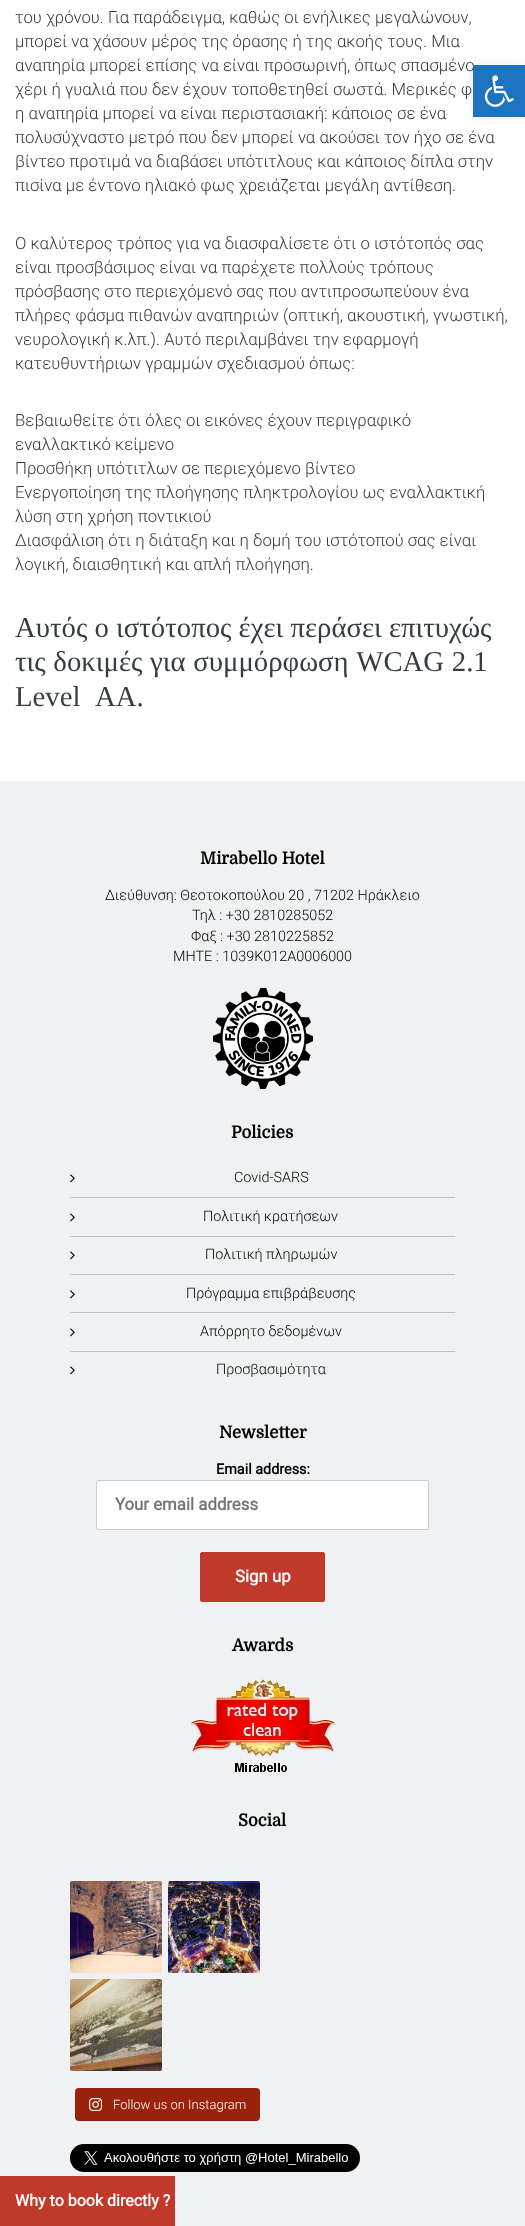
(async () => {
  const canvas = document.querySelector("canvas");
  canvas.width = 525;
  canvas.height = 2226;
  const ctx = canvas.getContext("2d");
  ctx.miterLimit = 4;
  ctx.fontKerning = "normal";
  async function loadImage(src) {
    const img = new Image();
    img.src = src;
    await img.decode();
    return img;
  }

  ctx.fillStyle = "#ffffff";
  ctx.fillRect(0, 0, 525, 2226);
  ctx.fillStyle = "#f0f1f2";
  ctx.fillRect(0, 781, 525, 1445);
  ctx.drawImage(await loadImage("img/1.png"), 213, 988, 100, 101);
  ctx.fillStyle = "#c3c3c4";
  ctx.fillRect(70, 1197, 385, 1);
  ctx.drawImage(await loadImage("img/2.png"), 70, 1174, 5, 9);
  ctx.fillRect(70, 1236, 385, 1);
  ctx.drawImage(await loadImage("img/2.png"), 70, 1213, 5, 9);
  ctx.fillRect(70, 1274, 385, 1);
  ctx.drawImage(await loadImage("img/2.png"), 70, 1251, 5, 9);
  ctx.fillRect(70, 1312, 385, 1);
  ctx.drawImage(await loadImage("img/2.png"), 70, 1290, 5, 9);
  ctx.fillRect(70, 1351, 385, 1);
  ctx.drawImage(await loadImage("img/2.png"), 70, 1328, 5, 9);
  ctx.drawImage(await loadImage("img/2.png"), 70, 1366, 5, 9);
  ctx.fillStyle = "#ffffff";
  ctx.beginPath();
  ctx.roundRect(96.5, 1480.5, 332, 49, 1.5);
  ctx.fill();
  ctx.strokeStyle = "#cecece";
  ctx.stroke();
  ctx.fillStyle = "#c0392b";
  ctx.beginPath();
  ctx.roundRect(200.5, 1552.5, 124, 49, 1.5);
  ctx.fill();
  ctx.strokeStyle = "#c0392b";
  ctx.stroke();
  ctx.drawImage(await loadImage("img/3.png"), 190, 1679, 146, 93);
  ctx.drawImage(await loadImage("img/4.png"), 70, 1881, 92, 92);
  ctx.drawImage(await loadImage("img/5.png"), 168, 1881, 92, 92);
  ctx.drawImage(await loadImage("img/6.png"), 70, 1979, 92, 92);
  ctx.fillStyle = "#99220a";
  ctx.beginPath();
  ctx.roundRect(75, 2088, 185, 33, 4);
  ctx.fill();
  ctx.drawImage(await loadImage("img/7.png"), 89, 2098, 13, 13);
  ctx.drawImage(await loadImage("img/8.png"), 70, 2144, 290, 28);
  ctx.fillStyle = "rgba(0, 0, 0, 0.1)";
  ctx.filter = "blur(5px)";
  ctx.beginPath();
  ctx.rect(473, 65, 52, 52);
  ctx.fill();
  ctx.filter = "none";
  ctx.fillStyle = "#c0392b";
  ctx.fillRect(0, 2176, 175, 50);
  ctx.font = "300 16.8px Roboto";
  ctx.fillStyle = "#3a3a3a";
  for (const [text, x, y] of [
    ["του χρόνου. Για παράδειγμα, καθώς οι ενήλικες μεγαλώνουν,", 15, 23],
    ["μπορεί να χάσουν μέρος της όρασης ή της ακοής τους. Μια", 15, 47],
    ["αναπηρία μπορεί επίσης να είναι προσωρινή, όπως σπασμένο", 15, 71],
    ["χέρι ή γυαλιά που δεν έχουν τοποθετηθεί σωστά. Μερικές φ", 15, 95],
    ["η αναπηρία μπορεί να είναι περιστασιακή: κάποιος σε ένα", 15, 119],
    ["πολυσύχναστο μετρό που δεν μπορεί να ακούσει τον ήχο σε ένα", 15, 143],
    ["βίντεο προτιμά να διαβάσει υπότιτλους και κάποιος δίπλα στην", 15, 167],
    ["πισίνα με έντονο ηλιακό φως χρειάζεται μεγάλη αντίθεση.", 15, 191],
    ["Ο καλύτερος τρόπος για να διασφαλίσετε ότι ο ιστότοπός σας", 15, 249],
    ["είναι προσβάσιμος είναι να παρέχετε πολλούς τρόπους", 15, 273],
    ["πρόσβασης στο περιεχόμενό σας που αντιπροσωπεύουν ένα", 15, 297],
    ["πλήρες φάσμα πιθανών αναπηριών (οπτική, ακουστική, γνωστική,", 15, 321],
    ["νευρολογική κ.λπ.). Αυτό περιλαμβάνει την εφαρμογή", 15, 345],
    ["κατευθυντήριων γραμμών σχεδιασμού όπως:", 15, 369],
    ["Βεβαιωθείτε ότι όλες οι εικόνες έχουν περιγραφικό", 15, 426],
    ["εναλλακτικό κείμενο", 15, 450],
    ["Προσθήκη υπότιτλων σε περιεχόμενο βίντεο", 15, 474],
    ["Ενεργοποίηση της πλοήγησης πληκτρολογίου ως εναλλακτική", 15, 498],
    ["λύση στη χρήση ποντικιού", 15, 522],
    ["Διασφάλιση ότι η διάταξη και η δομή του ιστότοπού σας είναι", 15, 546],
    ["λογική, διαισθητική και απλή πλοήγηση.", 15, 570],
  ]) {
    ctx.fillText(text, x, y);
  }
  ctx.font = "28.75px Liberation Serif";
  ctx.fillStyle = "#363d40";
  ctx.fillText("Αυτός ο ιστότοπος έχει περάσει επιτυχώς", 15, 637);
  ctx.wordSpacing = "0.5px";
  ctx.fillText("τις δοκιμές για συμμόρφωση WCAG 2.1", 15, 671);
  ctx.wordSpacing = "9px";
  ctx.fillText("Level AA.", 15, 706);
  ctx.wordSpacing = "0px";
  ctx.font = "bold 16.8px Domine";
  ctx.fillStyle = "#000000";
  ctx.fillText("Mirabello Hotel", 200, 864);
  ctx.font = "300 14.4px Roboto";
  for (const [text, x, y] of [
    ["Διεύθυνση: Θεοτοκοπούλου 20 , 71202 Ηράκλειο", 105, 900],
    ["Τηλ : +30 2810285052", 192, 920],
    ["Φαξ : +30 2810225852", 191, 941],
    ["MHTE : 1039K012A0006000", 173, 961],
  ]) {
    ctx.fillText(text, x, y);
  }
  ctx.font = "bold 16.8px Domine";
  ctx.fillText("Policies", 231, 1138);
  ctx.font = "300 14.4px Roboto";
  for (const [text, x, y] of [
    ["Covid-SARS", 234, 1182],
    ["Πολιτική κρατήσεων", 203, 1221],
    ["Πολιτική πληρωμών", 205, 1259],
    ["Πρόγραμμα επιβράβευσης", 186, 1298],
    ["Απόρρητο δεδομένων", 200, 1336],
    ["Προσβασιμότητα", 216, 1374],
  ]) {
    ctx.fillText(text, x, y);
  }
  ctx.font = "bold 16.8px Domine";
  ctx.fillText("Newsletter", 219, 1438);
  ctx.font = "bold 14.4px Roboto";
  ctx.fillText("Email address:", 216, 1474);
  ctx.font = "bold 16.8px Roboto";
  ctx.fillStyle = "#757575";
  ctx.fillText("Your email address", 115, 1510);
  ctx.fillStyle = "#ffffff";
  ctx.fillText("Sign up", 235, 1582);
  ctx.font = "bold 16.8px Domine";
  ctx.fillStyle = "#000000";
  ctx.fillText("Awards", 232, 1651);
  ctx.fillText("Social", 238, 1826);
  ctx.font = "300 13px Roboto";
  ctx.fillStyle = "#ffffff";
  ctx.fillText("Follow us on Instagram", 113, 2109);
  ctx.fillStyle = "#1e73be";
  ctx.fillRect(473, 65, 52, 52);
  ctx.drawImage(await loadImage("img/9.png"), 484, 75, 30, 32);
  ctx.font = "bold 16px Roboto";
  ctx.fillStyle = "#ffffff";
  ctx.fillText("Why to book directly ?", 15, 2206);
})();
